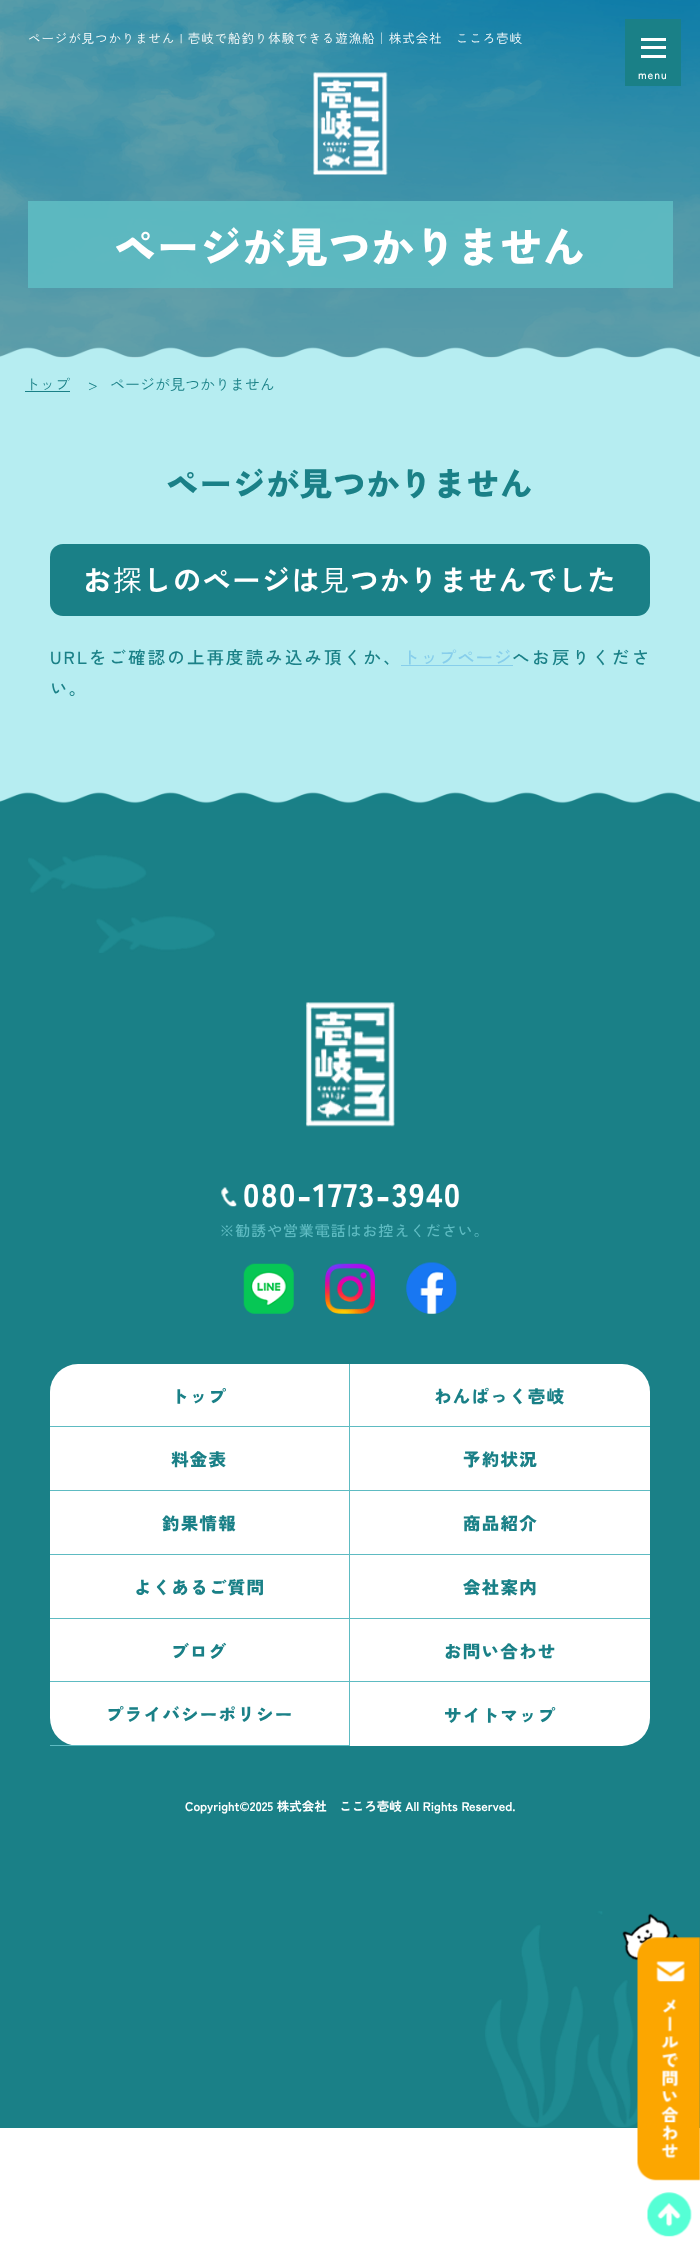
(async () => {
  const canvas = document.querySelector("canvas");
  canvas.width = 700;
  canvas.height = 2261;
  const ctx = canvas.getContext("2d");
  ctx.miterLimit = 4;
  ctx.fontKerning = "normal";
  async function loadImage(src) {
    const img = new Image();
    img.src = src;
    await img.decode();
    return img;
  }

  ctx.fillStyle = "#ffffff";
  ctx.fillRect(0, 0, 700, 2261);
  ctx.drawImage(await loadImage("img/1.png"), 0, 0, 700, 358);
  ctx.drawImage(await loadImage("img/2.png"), 313, 72, 75, 103);
  ctx.fillStyle = "rgba(94, 187, 194, 0.9)";
  ctx.fillRect(28, 201, 645, 87);
  ctx.drawImage(await loadImage("img/3.png"), 0, 347, 700, 11);
  for (const [x, y, w, h, color] of [
    [625, 19, 56, 67, "#1a8087"],
    [641, 38, 25, 3, "#ffffff"],
    [641, 46, 25, 3, "#ffffff"],
    [641, 55, 25, 3, "#ffffff"],
    [0, 358, 700, 446, "#b6edf1"],
    [25, 391, 45, 1, "#1a8087"],
  ]) {
    ctx.fillStyle = color;
    ctx.fillRect(x, y, w, h);
  }
  ctx.beginPath();
  ctx.roundRect(50, 544, 600, 72, 13);
  ctx.fill();
  ctx.fillStyle = "#87ceeb";
  ctx.fillRect(401, 665, 112, 1);
  ctx.drawImage(await loadImage("img/4.png"), 0, 792, 700, 12);
  ctx.fillStyle = "#1a8087";
  ctx.fillRect(0, 804, 700, 1324);
  ctx.drawImage(await loadImage("img/5.png"), 28, 855, 187, 98);
  ctx.drawImage(await loadImage("img/6.png"), 305, 1002, 90, 125);
  ctx.drawImage(await loadImage("img/7.png"), 221, 1187, 16, 20);
  ctx.drawImage(await loadImage("img/8.png"), 221, 1224, 258, 14);
  ctx.drawImage(await loadImage("img/9.png"), 243, 1263, 51, 51);
  ctx.drawImage(await loadImage("img/10.png"), 325, 1263, 50, 51);
  ctx.drawImage(await loadImage("img/11.png"), 406, 1262, 51, 52);
  ctx.fillStyle = "#ffffff";
  ctx.beginPath();
  ctx.roundRect(50, 1364, 600, 382, 28);
  ctx.fill();
  for (const [x, y, w, h, color] of [
    [349, 1364, 1, 382, "#5ebbc2"],
    [50, 1426, 600, 1, "#5ebbc2"],
    [50, 1490, 600, 1, "#5ebbc2"],
    [50, 1554, 600, 1, "#5ebbc2"],
    [50, 1618, 600, 1, "#5ebbc2"],
    [50, 1681, 600, 1, "#5ebbc2"],
    [50, 1745, 300, 1, "#5ebbc2"],
  ]) {
    ctx.fillStyle = color;
    ctx.fillRect(x, y, w, h);
  }
  ctx.drawImage(await loadImage("img/12.png"), 485, 1911, 153, 216);
  ctx.drawImage(await loadImage("img/13.png"), 622, 1913, 58, 48);
  ctx.drawImage(await loadImage("img/14.png"), 637, 1937, 63, 244);
  ctx.drawImage(await loadImage("img/15.png"), 647, 2192, 45, 45);
  ctx.letterSpacing = "0.9px";
  ctx.font = "12.5px Zen Kaku Gothic New";
  ctx.fillStyle = "#ffffff";
  ctx.fillText("ページが見つかりません | 壱岐で船釣り体験できる遊漁船｜株式会社　こころ壱岐", 28, 43);
  ctx.font = "900 42px Zen Kaku Gothic New";
  ctx.fillText("ページが見つかりません", 114, 263);
  ctx.font = "500 11px Zen Kaku Gothic New";
  ctx.fillText("menu", 638, 79);
  ctx.letterSpacing = "0px";
  ctx.font = "15px Zen Kaku Gothic New";
  ctx.fillStyle = "#1a8087";
  for (const [text, x, y] of [
    ["トップ", 25, 390],
    [">", 88, 390],
    ["ページが見つかりません", 110, 390],
  ]) {
    ctx.fillText(text, x, y);
  }
  ctx.letterSpacing = "0.9px";
  ctx.font = "900 32.5px Zen Kaku Gothic New";
  ctx.fillText("ページが見つかりません", 166, 496);
  ctx.font = "bold 28.75px Zen Kaku Gothic New";
  ctx.fillStyle = "#ffffff";
  ctx.fillText("お", 83, 591);
  ctx.font = "28.75px 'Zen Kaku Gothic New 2'";
  ctx.fillText("探", 113, 591);
  ctx.font = "bold 28.75px Zen Kaku Gothic New";
  ctx.fillText("しのページは", 143, 591);
  ctx.font = "28.75px 'Zen Kaku Gothic New 2'";
  ctx.fillText("見", 320, 591);
  ctx.font = "bold 28.75px Zen Kaku Gothic New";
  ctx.fillText("つかりませんでした", 350, 591);
  ctx.letterSpacing = "2.1px";
  ctx.font = "500 17.5px Zen Kaku Gothic New";
  ctx.fillStyle = "#1a8087";
  ctx.fillText("URLをご確認の上再度読み込み頂くか、", 50, 664);
  ctx.letterSpacing = "0.9px";
  ctx.fillStyle = "#87ceeb";
  ctx.fillText("トップページ", 402, 664);
  ctx.letterSpacing = "2.5px";
  ctx.fillStyle = "#1a8087";
  ctx.fillText("へお戻りくださ", 512, 664);
  ctx.letterSpacing = "0.9px";
  ctx.fillText("い。", 50, 695);
  ctx.letterSpacing = "1.6px";
  ctx.font = "900 32.5px Zen Kaku Gothic New";
  ctx.fillStyle = "#ffffff";
  ctx.fillText("080-1773-3940", 243, 1207);
  ctx.letterSpacing = "1.25px";
  ctx.font = "900 17.5px Zen Kaku Gothic New";
  ctx.fillStyle = "#1a8087";
  for (const [text, x, y] of [
    ["トップ", 171, 1403],
    ["わんぱっく壱岐", 434, 1403],
    ["料金表", 171, 1466],
    ["予約状況", 463, 1466],
    ["釣果情報", 162, 1530],
    ["商品紹介", 463, 1530],
    ["よくあるご質問", 134, 1594],
    ["会社案内", 463, 1594],
    ["ブログ", 171, 1658],
    ["お問い合わせ", 444, 1658],
    ["プライバシーポリシー", 106, 1721],
    ["サイトマップ", 444, 1722],
  ]) {
    ctx.fillText(text, x, y);
  }
  ctx.letterSpacing = "0px";
  ctx.font = "bold 12.5px Zen Kaku Gothic New";
  ctx.fillStyle = "#ffffff";
  ctx.fillText("Copyright©2025 株式会社　こころ壱岐 All Rights Reserved.", 185, 1811);
})();
